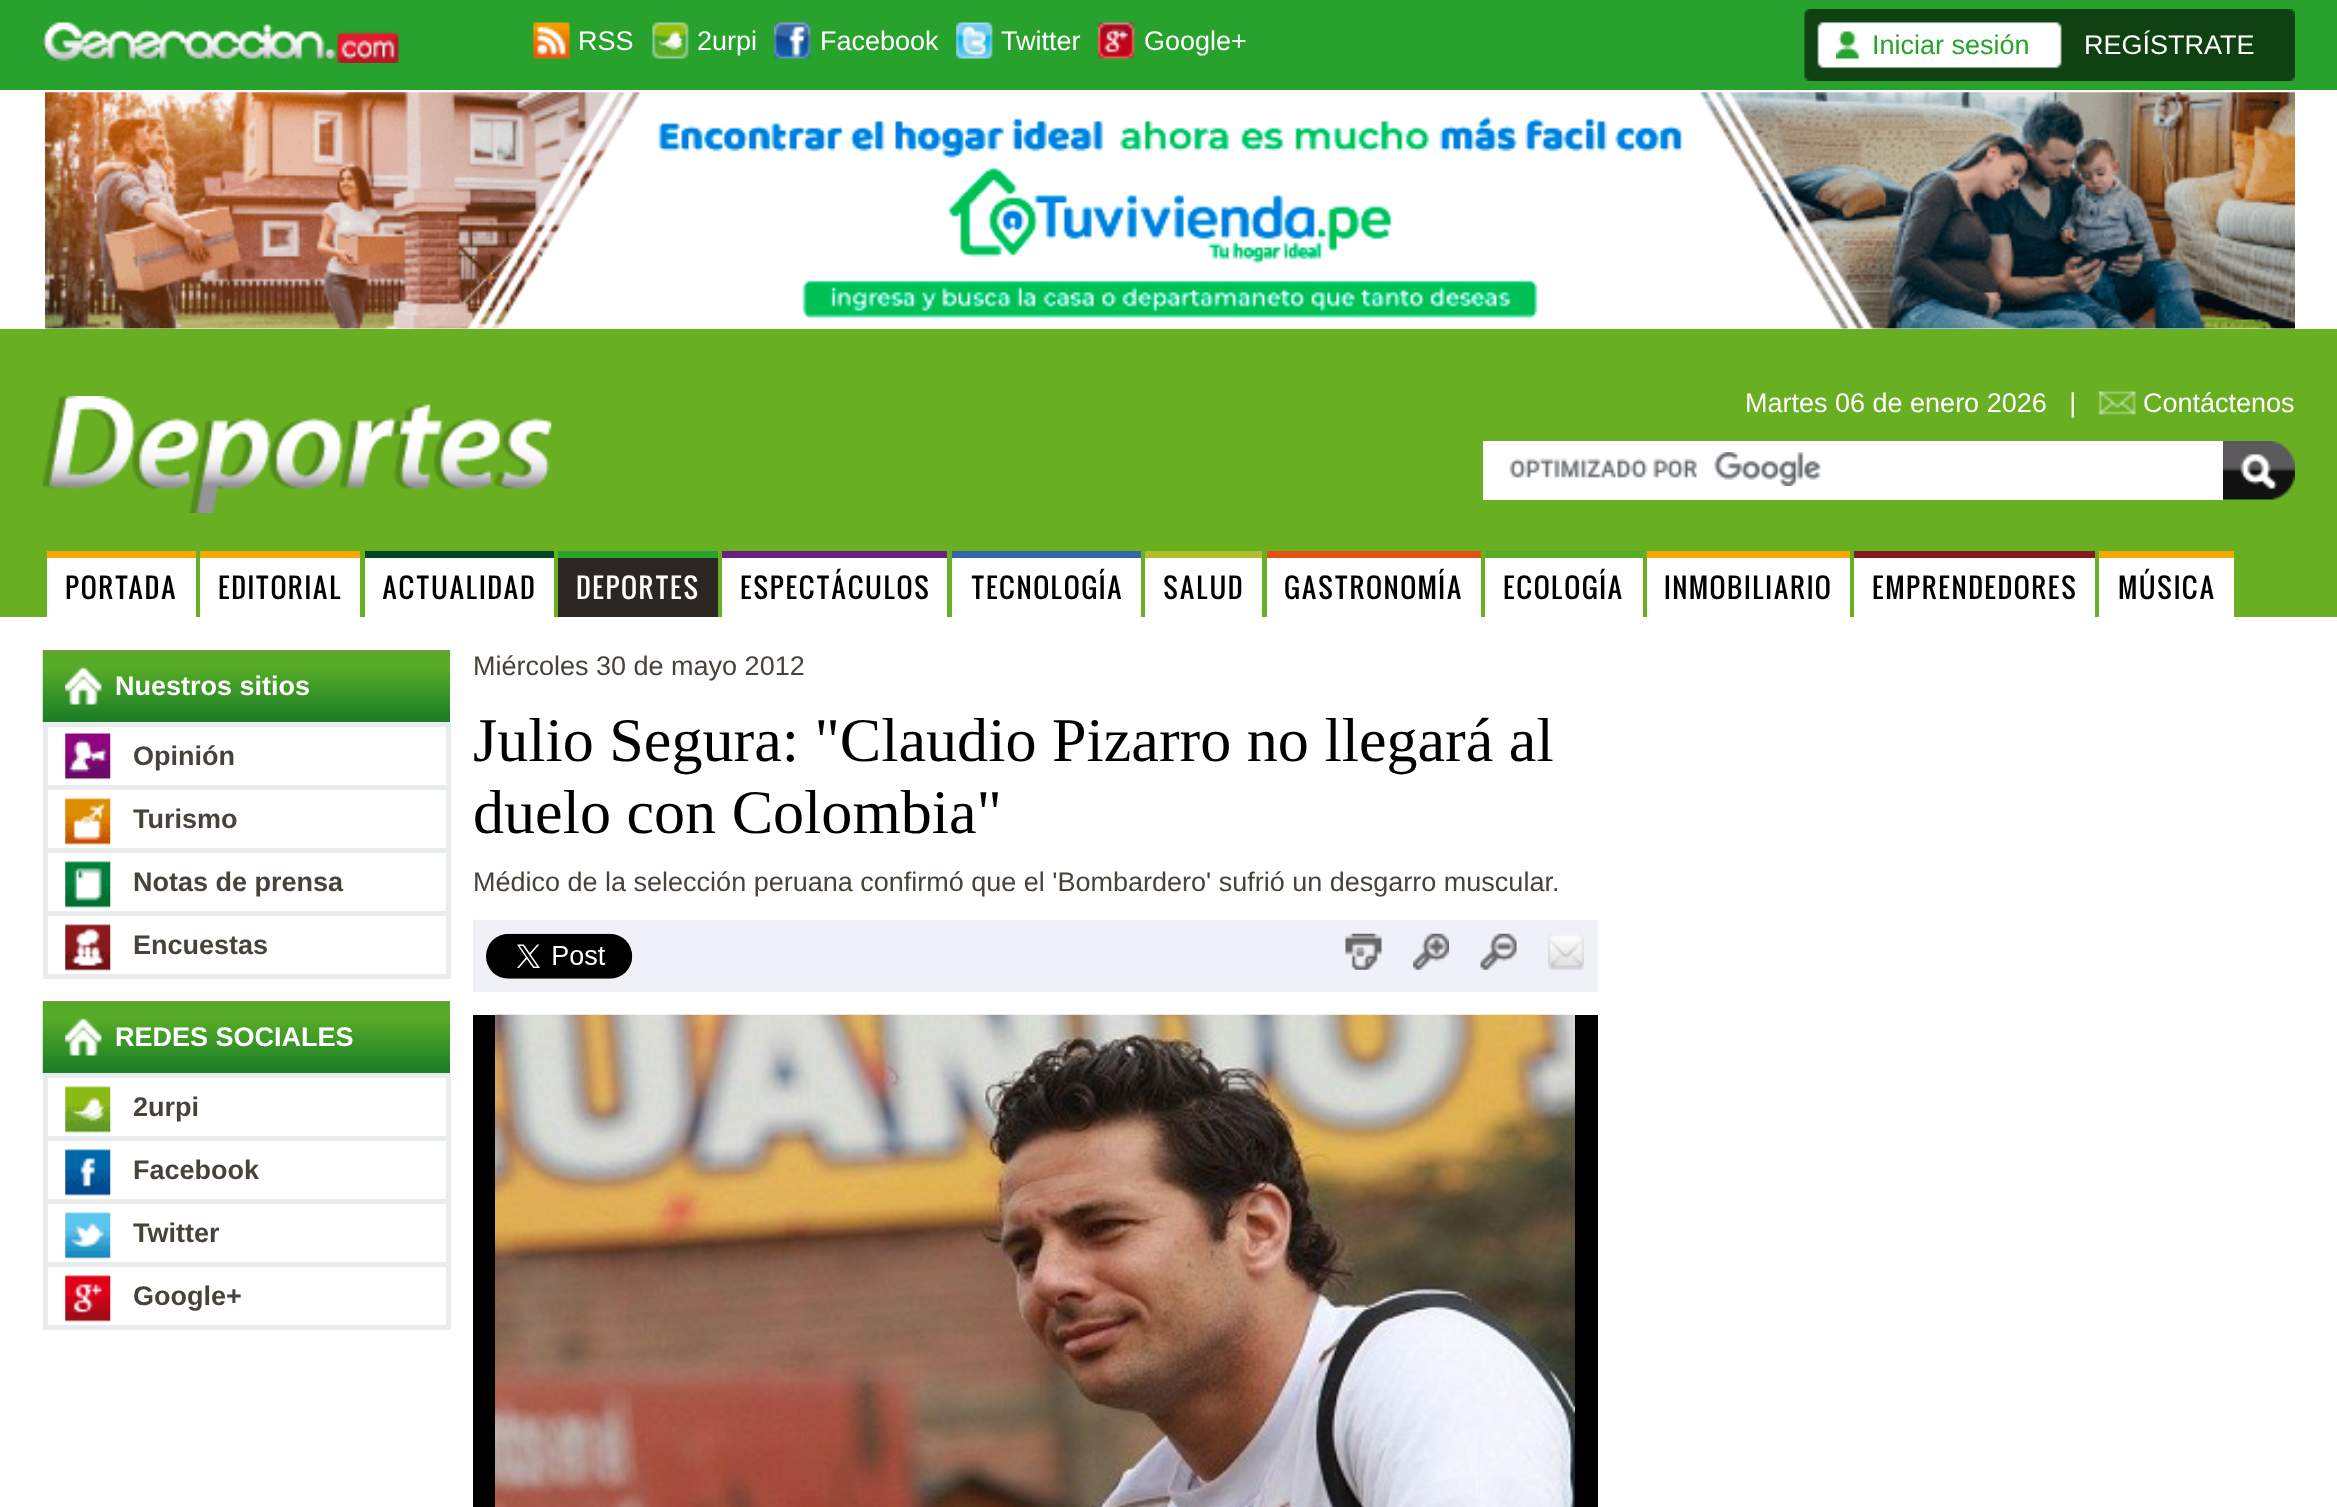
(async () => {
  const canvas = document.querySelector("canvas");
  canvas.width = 2337;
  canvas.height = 1507;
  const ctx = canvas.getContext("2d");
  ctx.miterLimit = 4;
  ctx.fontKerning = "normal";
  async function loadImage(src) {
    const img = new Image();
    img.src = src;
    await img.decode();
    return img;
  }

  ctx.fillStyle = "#ffffff";
  ctx.fillRect(0, 0, 2337, 1507);
  ctx.fillStyle = "#27a22d";
  ctx.fillRect(0, 0, 2337, 90);
  ctx.drawImage(await loadImage("img/1.png"), 42, 22, 357, 41);
  ctx.drawImage(await loadImage("img/2.png"), 533, 22, 38, 37);
  ctx.drawImage(await loadImage("img/3.png"), 652, 22, 37, 37);
  ctx.drawImage(await loadImage("img/4.png"), 774, 22, 37, 37);
  ctx.drawImage(await loadImage("img/5.png"), 956, 22, 37, 37);
  ctx.drawImage(await loadImage("img/6.png"), 1098, 22, 37, 37);
  ctx.drawImage(await loadImage("img/7.png"), 1804, 9, 491, 72);
  ctx.drawImage(await loadImage("img/8.png"), 1836, 31, 24, 29);
  ctx.drawImage(await loadImage("img/9.png"), 45, 92, 2250, 237);
  ctx.fillStyle = "#68b022";
  ctx.fillRect(0, 329, 2337, 288);
  ctx.drawImage(await loadImage("img/10.png"), 42, 396, 510, 117);
  ctx.drawImage(await loadImage("img/11.png"), 2099, 391, 37, 24);
  ctx.fillStyle = "#ffffff";
  ctx.fillRect(1483, 441, 740, 59);
  ctx.drawImage(await loadImage("img/12.png"), 1509, 452, 312, 34);
  ctx.drawImage(await loadImage("img/13.png"), 2223, 441, 72, 59);
  for (const [x, y, w, h, color] of [
    [47, 558, 149, 59, "#ffffff"],
    [47, 551, 149, 7, "#f7a800"],
    [200, 558, 160, 59, "#ffffff"],
    [200, 551, 160, 7, "#f7a800"],
    [365, 558, 189, 59, "#ffffff"],
    [365, 551, 189, 7, "#004723"],
    [558, 551, 160, 7, "#27a22d"],
    [558, 558, 160, 59, "#2c2622"],
    [722, 558, 225, 59, "#ffffff"],
    [722, 551, 225, 7, "#6d1f80"],
    [952, 558, 189, 59, "#ffffff"],
    [952, 551, 189, 7, "#3365a9"],
    [1145, 558, 117, 59, "#ffffff"],
    [1145, 551, 117, 7, "#b1bd2d"],
    [1267, 558, 214, 59, "#ffffff"],
    [1267, 551, 214, 7, "#e75012"],
    [1485, 558, 158, 59, "#ffffff"],
    [1485, 551, 158, 7, "#56ab27"],
    [1647, 558, 203, 59, "#ffffff"],
    [1647, 551, 203, 7, "#f7a800"],
    [1854, 558, 241, 59, "#ffffff"],
    [1854, 551, 241, 7, "#841c1f"],
    [2099, 558, 135, 59, "#ffffff"],
    [2099, 551, 135, 7, "#f7a800"],
  ]) {
    ctx.fillStyle = color;
    ctx.fillRect(x, y, w, h);
  }
  ctx.drawImage(await loadImage("img/14.png"), 42, 650, 408, 73);
  ctx.drawImage(await loadImage("img/15.png"), 65, 667, 37, 38);
  for (const [x, y, w, h, color] of [
    [43, 722, 407, 5, "#e9eced"],
    [446, 722, 5, 257, "#e9eced"],
    [43, 722, 5, 257, "#e9eced"],
  ]) {
    ctx.fillStyle = color;
    ctx.fillRect(x, y, w, h);
  }
  ctx.drawImage(await loadImage("img/16.png"), 65, 733, 46, 47);
  ctx.fillRect(47, 785, 399, 5);
  ctx.drawImage(await loadImage("img/17.png"), 65, 798, 46, 47);
  ctx.fillRect(47, 848, 399, 5);
  ctx.drawImage(await loadImage("img/18.png"), 65, 861, 46, 47);
  ctx.fillRect(47, 911, 399, 5);
  ctx.drawImage(await loadImage("img/19.png"), 65, 924, 46, 47);
  ctx.fillRect(47, 974, 399, 5);
  ctx.drawImage(await loadImage("img/14.png"), 42, 1001, 408, 73);
  ctx.drawImage(await loadImage("img/20.png"), 65, 1018, 37, 38);
  for (const [x, y, w, h, color] of [
    [43, 1073, 407, 5, "#e9eced"],
    [446, 1073, 5, 257, "#e9eced"],
    [43, 1073, 5, 257, "#e9eced"],
  ]) {
    ctx.fillStyle = color;
    ctx.fillRect(x, y, w, h);
  }
  ctx.drawImage(await loadImage("img/21.png"), 65, 1086, 46, 47);
  ctx.fillRect(47, 1136, 399, 5);
  ctx.drawImage(await loadImage("img/22.png"), 65, 1149, 46, 47);
  ctx.fillRect(47, 1199, 399, 5);
  ctx.drawImage(await loadImage("img/23.png"), 65, 1212, 46, 47);
  ctx.fillRect(47, 1262, 399, 5);
  ctx.drawImage(await loadImage("img/24.png"), 65, 1275, 46, 47);
  ctx.fillRect(47, 1325, 399, 5);
  ctx.fillStyle = "#eff0f8";
  ctx.fillRect(473, 920, 1125, 72);
  ctx.drawImage(await loadImage("img/25.png"), 486, 933, 147, 46);
  ctx.drawImage(await loadImage("img/26.png"), 1345, 933, 37, 37);
  ctx.drawImage(await loadImage("img/27.png"), 1413, 933, 36, 37);
  ctx.drawImage(await loadImage("img/28.png"), 1480, 933, 37, 37);
  ctx.drawImage(await loadImage("img/29.png"), 1548, 934, 36, 36);
  ctx.fillStyle = "#000000";
  ctx.fillRect(473, 1015, 1125, 492);
  ctx.drawImage(await loadImage("img/30.png"), 495, 1014, 1080, 493);
  ctx.font = "27px Liberation Sans";
  ctx.fillStyle = "#ffffff";
  for (const [text, x, y] of [
    ["RSS", 578, 50],
    ["2urpi", 697, 50],
    ["Facebook", 820, 50],
    ["Twitter", 1001, 50],
    ["Google+", 1144, 50],
  ]) {
    ctx.fillText(text, x, y);
  }
  ctx.fillStyle = "#27a22d";
  ctx.fillText("Iniciar sesión", 1872, 54);
  ctx.fillStyle = "#ffffff";
  for (const [text, x, y] of [
    ["REGÍSTRATE", 2084, 54],
    ["Martes 06 de enero 2026   |", 1745, 412],
    ["Contáctenos", 2143, 412],
  ]) {
    ctx.fillText(text, x, y);
  }
  ctx.letterSpacing = "1.4px";
  ctx.font = "27px Oswald";
  ctx.fillStyle = "#000000";
  for (const [text, x, y] of [
    ["PORTADA", 65, 599],
    ["EDITORIAL", 218, 599],
    ["ACTUALIDAD", 382, 599],
  ]) {
    ctx.fillText(text, x, y);
  }
  ctx.fillStyle = "#ffffff";
  ctx.fillText("DEPORTES", 576, 599);
  ctx.fillStyle = "#000000";
  for (const [text, x, y] of [
    ["ESPECTÁCULOS", 740, 599],
    ["TECNOLOGÍA", 971, 599],
    ["SALUD", 1163, 599],
    ["GASTRONOMÍA", 1284, 599],
    ["ECOLOGÍA", 1503, 599],
    ["INMOBILIARIO", 1664, 599],
    ["EMPRENDEDORES", 1872, 599],
    ["MÚSICA", 2118, 599],
  ]) {
    ctx.fillText(text, x, y);
  }
  ctx.letterSpacing = "0px";
  ctx.font = "bold 27px Liberation Sans";
  ctx.fillStyle = "#ffffff";
  ctx.fillText("Nuestros sitios", 115, 695);
  ctx.fillStyle = "#47433b";
  for (const [text, x, y] of [
    ["Opinión", 133, 765],
    ["Turismo", 133, 828],
    ["Notas de prensa", 133, 891],
    ["Encuestas", 133, 954],
  ]) {
    ctx.fillText(text, x, y);
  }
  ctx.fillStyle = "#ffffff";
  ctx.fillText("REDES SOCIALES", 115, 1046);
  ctx.fillStyle = "#47433b";
  for (const [text, x, y] of [
    ["2urpi", 133, 1116],
    ["Facebook", 133, 1179],
    ["Twitter", 133, 1242],
    ["Google+", 133, 1305],
  ]) {
    ctx.fillText(text, x, y);
  }
  ctx.font = "27px Liberation Sans";
  ctx.fillText("Miércoles 30 de mayo 2012", 473, 675);
  ctx.font = "62.1px Liberation Serif";
  ctx.fillStyle = "#000000";
  ctx.fillText("Julio Segura: \"Claudio Pizarro no llegará al", 473, 761);
  ctx.fillText("duelo con Colombia\"", 473, 833);
  ctx.font = "27px Liberation Sans";
  ctx.fillStyle = "#47433b";
  ctx.fillText("Médico de la selección peruana confirmó que el 'Bombardero' sufrió un desgarro muscular.", 473, 891);
})();
